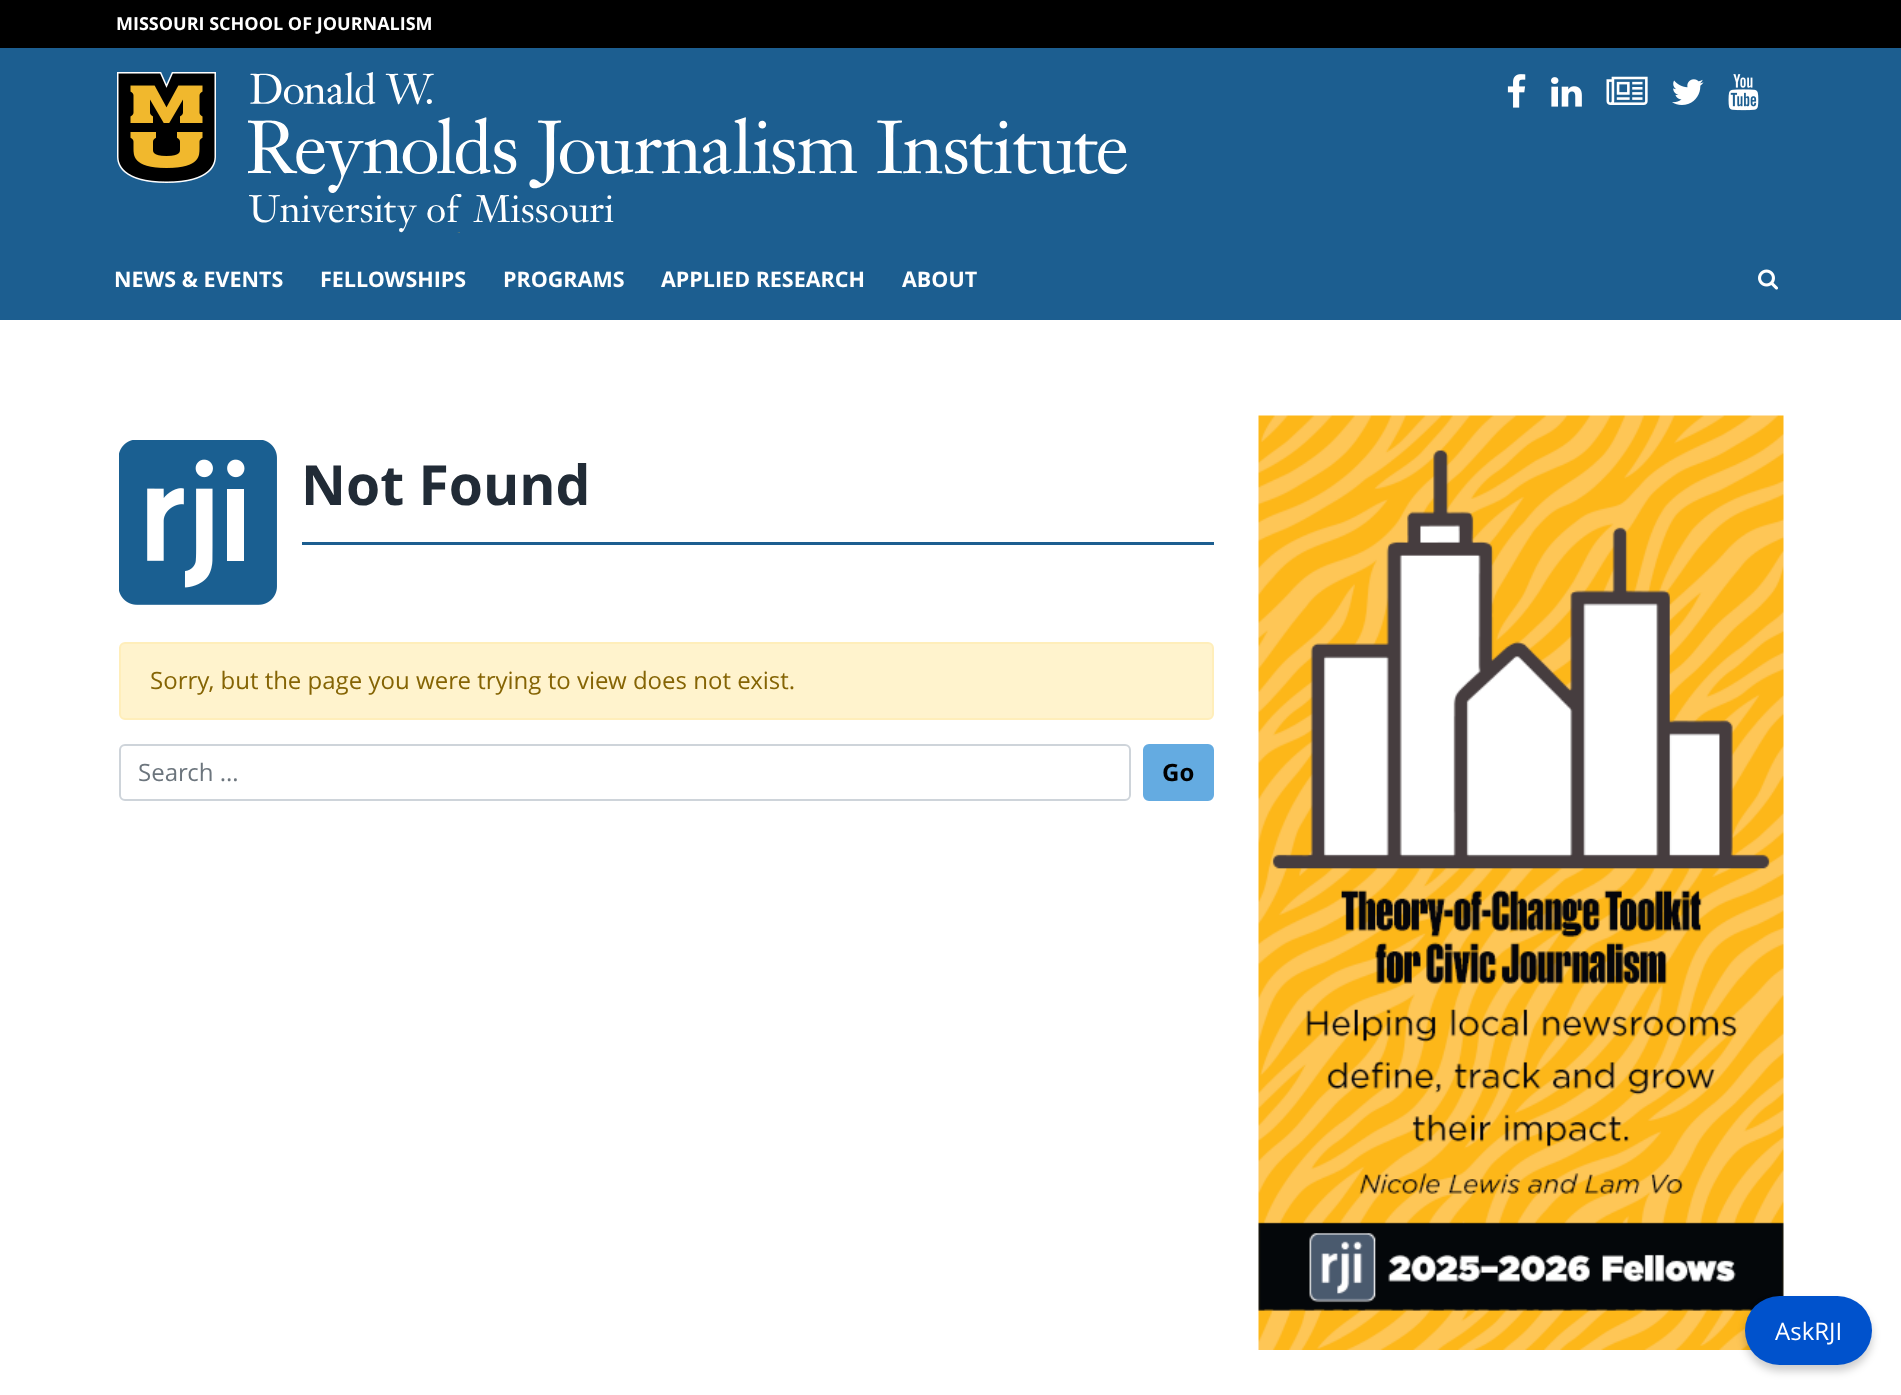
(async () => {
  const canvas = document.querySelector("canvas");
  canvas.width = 1901;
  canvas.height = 1395;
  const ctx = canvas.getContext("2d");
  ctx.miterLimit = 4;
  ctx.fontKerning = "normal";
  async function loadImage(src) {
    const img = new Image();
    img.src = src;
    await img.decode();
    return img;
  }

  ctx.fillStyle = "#ffffff";
  ctx.fillRect(0, 0, 1901, 1395);
  ctx.fillStyle = "#000000";
  ctx.fillRect(0, 0, 1901, 48);
  ctx.fillStyle = "#1c5e90";
  ctx.fillRect(0, 48, 1901, 272);
  ctx.drawImage(await loadImage("img/1.png"), 117, 72, 99, 111);
  ctx.drawImage(await loadImage("img/2.png"), 248, 72, 879, 121);
  ctx.drawImage(await loadImage("img/3.png"), 249, 194, 365, 39);
  ctx.drawImage(await loadImage("img/4.png"), 1507, 74, 19, 34);
  ctx.drawImage(await loadImage("img/5.png"), 1551, 77, 31, 30);
  ctx.drawImage(await loadImage("img/6.png"), 1606, 76, 42, 29);
  ctx.drawImage(await loadImage("img/7.png"), 1672, 79, 32, 26);
  ctx.drawImage(await loadImage("img/8.png"), 1728, 74, 31, 37);
  ctx.drawImage(await loadImage("img/9.png"), 1758, 269, 20, 21);
  ctx.drawImage(await loadImage("img/10.png"), 119, 440, 158, 165);
  ctx.fillRect(302, 542, 912, 3);
  ctx.fillStyle = "#fff3cd";
  ctx.beginPath();
  ctx.roundRect(120, 643, 1093, 76, 5);
  ctx.fill();
  ctx.strokeStyle = "#ffeeba";
  ctx.lineWidth = 2;
  ctx.stroke();
  ctx.beginPath();
  ctx.roundRect(120, 745, 1010, 55, 5);
  ctx.strokeStyle = "#ced4da";
  ctx.stroke();
  ctx.fillStyle = "#64abe1";
  ctx.beginPath();
  ctx.roundRect(1144, 745, 69, 55, 5);
  ctx.fill();
  ctx.strokeStyle = "#64abe1";
  ctx.stroke();
  ctx.drawImage(await loadImage("img/11.png"), 1258, 415, 526, 935);
  ctx.fillStyle = "rgba(0, 0, 0, 0.2)";
  ctx.filter = "blur(4.5px)";
  ctx.beginPath();
  ctx.roundRect(1745, 1302, 127, 69, 34.5);
  ctx.fill();
  ctx.filter = "none";
  ctx.fillStyle = "#0052cc";
  ctx.beginPath();
  ctx.roundRect(1745, 1296, 127, 69, 34.5);
  ctx.fill();
  ctx.font = "bold 18px Open Sans";
  ctx.fillStyle = "#ffffff";
  ctx.fillText("MISSOURI SCHOOL OF JOURNALISM", 116, 30);
  ctx.font = "bold 21.5px Open Sans";
  for (const [text, x, y] of [
    ["NEWS & EVENTS", 114, 287],
    ["FELLOWSHIPS", 320, 287],
    ["PROGRAMS", 503, 287],
    ["APPLIED RESEARCH", 661, 287],
    ["ABOUT", 902, 287],
  ]) {
    ctx.fillText(text, x, y);
  }
  ctx.font = "bold 55.25px Open Sans";
  ctx.fillStyle = "#212b36";
  ctx.fillText("Not Found", 301, 505);
  ctx.font = "24px Open Sans";
  ctx.fillStyle = "#856404";
  ctx.fillText("Sorry, but the page you were trying to view does not exist.", 150, 689);
  ctx.fillStyle = "#6c757d";
  ctx.fillText("Search …", 138, 781);
  ctx.font = "bold 24px Open Sans";
  ctx.fillStyle = "#000000";
  ctx.fillText("Go", 1162, 781);
  ctx.font = "24px Open Sans";
  ctx.fillStyle = "#ffffff";
  ctx.fillText("AskRJI", 1775, 1340);
})();
